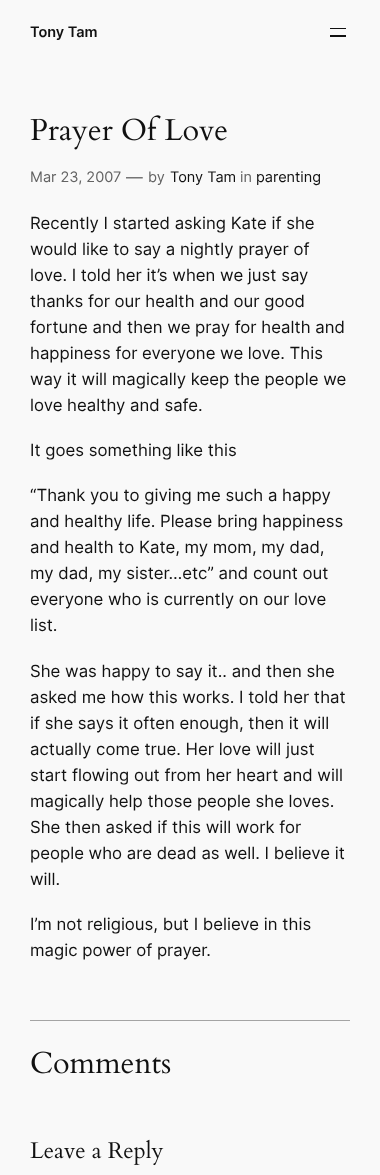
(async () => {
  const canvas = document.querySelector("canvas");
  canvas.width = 380;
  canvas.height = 1175;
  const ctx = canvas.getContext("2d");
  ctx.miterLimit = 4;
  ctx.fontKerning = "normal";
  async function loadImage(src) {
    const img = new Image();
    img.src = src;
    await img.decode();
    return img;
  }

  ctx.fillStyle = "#f9f9f9";
  ctx.fillRect(0, 0, 380, 1175);
  ctx.fillStyle = "#111111";
  ctx.fillRect(330, 28, 16, 1);
  ctx.fillRect(330, 35, 16, 2);
  ctx.drawImage(await loadImage("img/1.png"), 30, 115, 197, 35);
  ctx.fillStyle = "#a4a4a4";
  ctx.fillRect(30, 1020, 320, 1);
  ctx.drawImage(await loadImage("img/2.png"), 31, 1051, 140, 23);
  ctx.drawImage(await loadImage("img/3.png"), 30, 1139, 134, 27);
  ctx.font = "600 14.5px Inter";
  ctx.fillStyle = "#111111";
  ctx.fillText("Tony Tam", 30, 37);
  ctx.font = "14.5px Inter";
  ctx.fillStyle = "#636363";
  ctx.fillText("Mar 23, 2007", 30, 182);
  ctx.font = "16.75px Inter";
  ctx.fillText("—", 126, 183);
  ctx.font = "14.5px Inter";
  ctx.fillText("by", 148, 182);
  ctx.fillStyle = "#111111";
  ctx.fillText("Tony Tam", 170, 182);
  ctx.fillStyle = "#636363";
  ctx.fillText("in", 240, 182);
  ctx.fillStyle = "#111111";
  ctx.fillText("parenting", 256, 182);
  ctx.font = "16.75px Inter";
  for (const [text, x, y] of [
    ["Recently I started asking Kate if she", 30, 229],
    ["would like to say a nightly prayer of", 30, 255],
    ["love. I told her it’s when we just say", 30, 281],
    ["thanks for our health and our good", 30, 307],
    ["fortune and then we pray for health and", 30, 333],
    ["happiness for everyone we love. This", 30, 359],
    ["way it will magically keep the people we", 30, 385],
    ["love healthy and safe.", 30, 411],
    ["It goes something like this", 30, 456],
    ["“Thank you to giving me such a happy", 30, 501],
    ["and healthy life. Please bring happiness", 30, 527],
    ["and health to Kate, my mom, my dad,", 30, 553],
    ["my dad, my sister…etc” and count out", 30, 579],
    ["everyone who is currently on our love", 30, 605],
    ["list.", 30, 631],
    ["She was happy to say it.. and then she", 30, 677],
    ["asked me how this works. I told her that", 30, 703],
    ["if she says it often enough, then it will", 30, 729],
    ["actually come true. Her love will just", 30, 755],
    ["start flowing out from her heart and will", 30, 781],
    ["magically help those people she loves.", 30, 807],
    ["She then asked if this will work for", 30, 833],
    ["people who are dead as well. I believe it", 30, 859],
    ["will.", 30, 885],
    ["I’m not religious, but I believe in this", 30, 930],
    ["magic power of prayer.", 30, 956],
  ]) {
    ctx.fillText(text, x, y);
  }
})();
